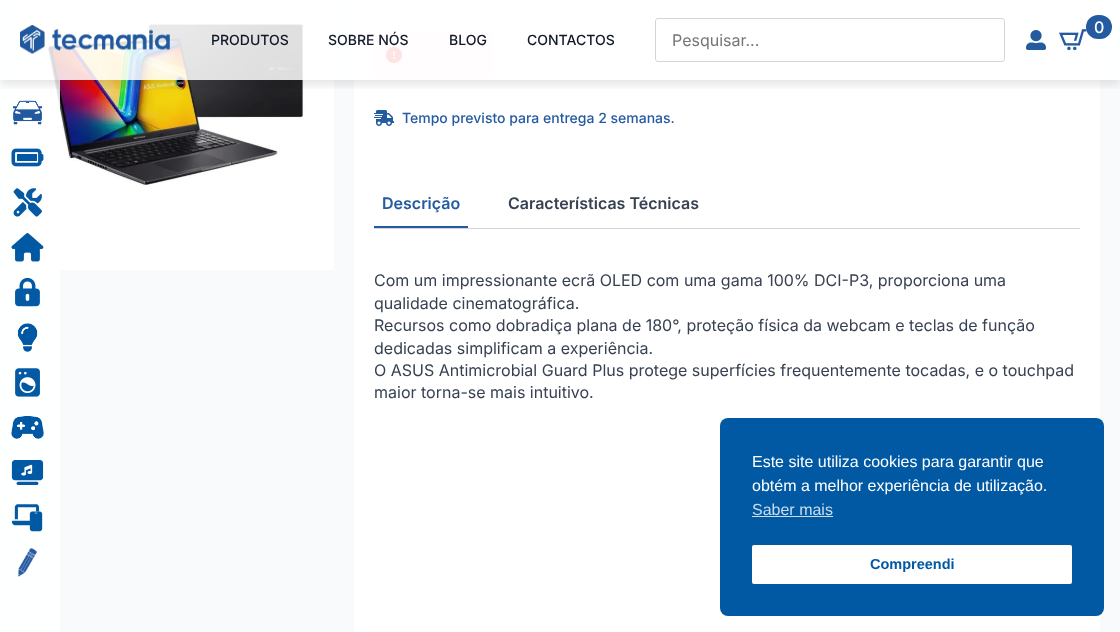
(async () => {
  const canvas = document.querySelector("canvas");
  canvas.width = 1120;
  canvas.height = 632;
  const ctx = canvas.getContext("2d");
  ctx.miterLimit = 4;
  ctx.fontKerning = "normal";
  async function loadImage(src) {
    const img = new Image();
    img.src = src;
    await img.decode();
    return img;
  }

  ctx.fillStyle = "#f9fafb";
  ctx.fillRect(0, 0, 1120, 632);
  ctx.drawImage(await loadImage("img/15.png"), 20, 0, 314, 270);
  ctx.fillStyle = "rgba(255, 255, 255, 0.85)";
  ctx.fillRect(0, 80, 60, 552);
  ctx.drawImage(await loadImage("img/4.png"), 12, 100, 31, 25);
  ctx.fillStyle = "#ffffff";
  ctx.fillRect(354, 0, 746, 632);
  ctx.fillStyle = "#fef2f2";
  ctx.beginPath();
  ctx.roundRect(374, 32, 120, 46, 4);
  ctx.fill();
  ctx.drawImage(await loadImage("img/16.png"), 386, 47, 16, 16);
  ctx.save();
  ctx.beginPath();
  ctx.rect(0, 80, 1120, 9);
  ctx.clip();
  ctx.fillStyle = "rgba(0, 0, 0, 0.1)";
  ctx.filter = "blur(5px)";
  ctx.beginPath();
  ctx.rect(0, 5, 1120, 80);
  ctx.fill();
  ctx.filter = "none";
  ctx.restore();
  ctx.fillStyle = "rgba(255, 255, 255, 0.85)";
  ctx.fillRect(0, 0, 1120, 80);
  ctx.drawImage(await loadImage("img/1.png"), 20, 25, 150, 29);
  ctx.beginPath();
  ctx.roundRect(655.5, 18.5, 349, 43, 2.5);
  ctx.strokeStyle = "#d1d5db";
  ctx.stroke();
  ctx.drawImage(await loadImage("img/2.png"), 1059, 29, 28, 22);
  ctx.fillStyle = "#235aa0";
  ctx.beginPath();
  ctx.roundRect(1086, 15, 26, 24, 12);
  ctx.fill();
  ctx.drawImage(await loadImage("img/3.png"), 1026, 30, 20, 20);
  ctx.drawImage(await loadImage("img/5.png"), 11, 148, 33, 19);
  ctx.drawImage(await loadImage("img/6.png"), 13, 188, 29, 29);
  ctx.drawImage(await loadImage("img/7.png"), 11, 233, 33, 29);
  ctx.drawImage(await loadImage("img/8.png"), 15, 277, 25, 30);
  ctx.drawImage(await loadImage("img/9.png"), 17, 323, 21, 29);
  ctx.drawImage(await loadImage("img/10.png"), 15, 368, 25, 29);
  ctx.drawImage(await loadImage("img/11.png"), 11, 416, 33, 23);
  ctx.drawImage(await loadImage("img/12.png"), 11, 460, 33, 25);
  ctx.drawImage(await loadImage("img/13.png"), 11, 504, 32, 28);
  ctx.drawImage(await loadImage("img/14.png"), 18, 548, 19, 29);
  ctx.drawImage(await loadImage("img/17.png"), 374, 110, 20, 16);
  ctx.fillStyle = "#d1d5db";
  ctx.fillRect(374, 228, 706, 1);
  ctx.fillStyle = "#235aa0";
  ctx.fillRect(374, 226, 94, 2);
  ctx.fillStyle = "#0159a3";
  ctx.beginPath();
  ctx.roundRect(720, 418, 384, 198, 8);
  ctx.fill();
  ctx.fillStyle = "#ccdeed";
  ctx.fillRect(752, 516, 81, 1);
  ctx.fillStyle = "#ffffff";
  ctx.beginPath();
  ctx.roundRect(752, 545, 320, 39, 2);
  ctx.fill();
  ctx.font = "500 14px Inter";
  ctx.fillStyle = "#111827";
  for (const [text, x, y] of [
    ["PRODUTOS", 211, 45],
    ["SOBRE NÓS", 328, 45],
    ["BLOG", 449, 45],
    ["CONTACTOS", 527, 45],
  ]) {
    ctx.fillText(text, x, y);
  }
  ctx.font = "16px Inter";
  ctx.fillStyle = "#757575";
  ctx.fillText("Pesquisar...", 672, 46);
  ctx.font = "500 16px Inter";
  ctx.fillStyle = "#ffffff";
  ctx.fillText("0", 1094, 33);
  ctx.font = "500 14px Inter";
  ctx.fillStyle = "#235aa0";
  ctx.fillText("Tempo previsto para entrega 2 semanas.", 402, 123);
  ctx.font = "600 16px Inter";
  ctx.fillText("Descrição", 382, 209);
  ctx.fillStyle = "#374151";
  ctx.fillText("Características Técnicas", 508, 209);
  ctx.font = "16px Inter";
  for (const [text, x, y] of [
    ["Com um impressionante ecrã OLED com uma gama 100% DCI-P3, proporciona uma", 374, 286],
    ["qualidade cinematográfica.", 374, 309],
    ["Recursos como dobradiça plana de 180°, proteção física da webcam e teclas de função", 374, 331],
    ["dedicadas simplificam a experiência.", 374, 354],
    ["O ASUS Antimicrobial Guard Plus protege superfícies frequentemente tocadas, e o touchpad", 374, 376],
    ["maior torna-se mais intuitivo.", 374, 398],
  ]) {
    ctx.fillText(text, x, y);
  }
  ctx.font = "16px Liberation Sans";
  ctx.fillStyle = "#ffffff";
  ctx.fillText("Este site utiliza cookies para garantir que", 752, 467);
  ctx.fillText("obtém a melhor experiência de utilização.", 752, 491);
  ctx.fillStyle = "#ccdeed";
  ctx.fillText("Saber mais", 752, 515);
  ctx.font = "bold 14.5px Liberation Sans";
  ctx.fillStyle = "#0159a3";
  ctx.fillText("Compreendi", 870, 569);
})();
